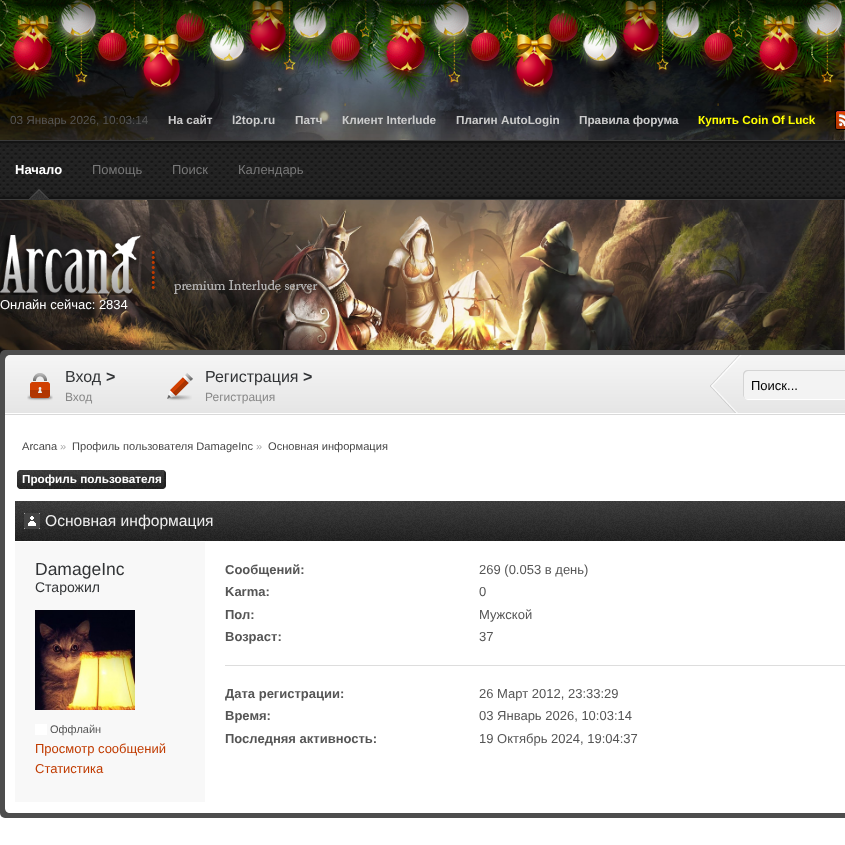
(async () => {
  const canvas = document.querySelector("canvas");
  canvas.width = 845;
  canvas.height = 845;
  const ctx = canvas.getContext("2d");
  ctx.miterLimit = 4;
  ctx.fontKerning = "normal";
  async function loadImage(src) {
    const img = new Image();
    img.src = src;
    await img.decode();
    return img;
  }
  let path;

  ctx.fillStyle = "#ffffff";
  ctx.fillRect(0, 0, 845, 845);
  ctx.drawImage(await loadImage("img/1.png"), 0, 0, 845, 355);
  ctx.drawImage(await loadImage("img/2.png"), 0, 0, 845, 106);
  ctx.drawImage(await loadImage("img/4.png"), 7, 0, 50, 82);
  ctx.drawImage(await loadImage("img/3.png"), 0, 0, 25, 71);
  ctx.drawImage(await loadImage("img/6.png"), 54, 0, 49, 48);
  ctx.drawImage(await loadImage("img/5.png"), 25, 0, 61, 27);
  ctx.drawImage(await loadImage("img/7.png"), 137, 0, 49, 99);
  ctx.drawImage(await loadImage("img/8.png"), 170, 0, 41, 51);
  ctx.drawImage(await loadImage("img/14.png"), 204, 6, 46, 66);
  ctx.drawImage(await loadImage("img/9.png"), 177, 0, 28, 31);
  ctx.drawImage(await loadImage("img/11.png"), 243, 0, 49, 62);
  ctx.drawImage(await loadImage("img/10.png"), 205, 0, 50, 50);
  ctx.drawImage(await loadImage("img/12.png"), 287, 0, 46, 49);
  ctx.drawImage(await loadImage("img/13.png"), 92, 9, 41, 61);
  ctx.drawImage(await loadImage("img/17.png"), 325, 10, 41, 62);
  ctx.drawImage(await loadImage("img/15.png"), 289, 0, 78, 28);
  ctx.drawImage(await loadImage("img/16.png"), 367, 0, 6, 69);
  ctx.drawImage(await loadImage("img/19.png"), 380, 0, 50, 82);
  ctx.drawImage(await loadImage("img/18.png"), 373, 0, 25, 71);
  ctx.drawImage(await loadImage("img/21.png"), 427, 0, 49, 48);
  ctx.drawImage(await loadImage("img/20.png"), 398, 0, 61, 27);
  ctx.drawImage(await loadImage("img/22.png"), 510, 0, 49, 98);
  ctx.drawImage(await loadImage("img/23.png"), 543, 0, 41, 52);
  ctx.drawImage(await loadImage("img/29.png"), 577, 6, 46, 66);
  ctx.drawImage(await loadImage("img/24.png"), 550, 0, 28, 31);
  ctx.drawImage(await loadImage("img/26.png"), 616, 0, 49, 63);
  ctx.drawImage(await loadImage("img/25.png"), 578, 0, 50, 50);
  ctx.drawImage(await loadImage("img/27.png"), 660, 0, 46, 49);
  ctx.drawImage(await loadImage("img/28.png"), 465, 9, 41, 61);
  ctx.drawImage(await loadImage("img/32.png"), 698, 10, 40, 61);
  ctx.drawImage(await loadImage("img/30.png"), 662, 0, 78, 28);
  ctx.drawImage(await loadImage("img/31.png"), 740, 0, 6, 69);
  ctx.drawImage(await loadImage("img/34.png"), 753, 0, 50, 82);
  ctx.drawImage(await loadImage("img/33.png"), 746, 0, 25, 71);
  ctx.drawImage(await loadImage("img/36.png"), 800, 0, 45, 48);
  ctx.drawImage(await loadImage("img/35.png"), 771, 0, 61, 27);
  ctx.drawImage(await loadImage("img/37.png"), 838, 36, 7, 30);
  ctx.fillStyle = "rgba(0, 0, 0, 0.75)";
  ctx.filter = "blur(15px)";
  ctx.beginPath();
  ctx.rect(0, -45, 845, 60);
  ctx.fill();
  ctx.filter = "none";
  ctx.drawImage(await loadImage("img/38.png"), 0, 119, 845, 21);
  ctx.drawImage(await loadImage("img/39.png"), 835, 110, 10, 20);
  ctx.drawImage(await loadImage("img/40.png"), 0, 140, 845, 60);
  ctx.drawImage(await loadImage("img/41.png"), 29, 189, 20, 11);
  ctx.drawImage(await loadImage("img/42.png"), 0, 200, 845, 155);
  ctx.drawImage(await loadImage("img/43.png"), 0, 235, 318, 60);
  ctx.fillStyle = "#4d4d4d";
  ctx.beginPath();
  ctx.roundRect(0, 350, 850, 468, 5);
  ctx.fill();
  ctx.drawImage(await loadImage("img/44.png"), 5, 355, 840, 60);
  ctx.drawImage(await loadImage("img/45.png"), 27, 373, 26, 28);
  ctx.drawImage(await loadImage("img/46.png"), 167, 373, 26, 28);
  ctx.drawImage(await loadImage("img/47.png"), 710, 355, 135, 58);
  ctx.fillStyle = "#ffffff";
  path = new Path2D("M5 415H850V808C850 811 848 813 845 813H10C7 813 5 811 5 808Z");
  ctx.fill(path);
  ctx.drawImage(await loadImage("img/48.png"), 161, 470, 5, 19);
  ctx.drawImage(await loadImage("img/49.png"), 17, 470, 144, 19);
  ctx.drawImage(await loadImage("img/50.png"), 15, 501, 9, 40);
  ctx.drawImage(await loadImage("img/51.png"), 24, 501, 821, 40);
  ctx.drawImage(await loadImage("img/52.png"), 24, 513, 16, 16);
  ctx.fillStyle = "#f8f8f8";
  ctx.fillRect(15, 542, 190, 260);
  ctx.drawImage(await loadImage("img/53.png"), 35, 610, 100, 100);
  ctx.fillStyle = "#ffffff";
  ctx.fillRect(35, 724, 12, 11);
  ctx.fillStyle = "#dddddd";
  ctx.fillRect(225, 665, 620, 1);
  ctx.font = "11.75px Liberation Sans";
  ctx.fillStyle = "#555555";
  ctx.fillText("03 Январь 2026, 10:03:14", 10, 124);
  ctx.font = "bold 11.75px Liberation Sans";
  ctx.fillStyle = "#cccccc";
  for (const [text, x, y] of [
    ["На сайт", 168, 124],
    ["l2top.ru", 232, 124],
    ["Патч", 295, 124],
    ["Клиент Interlude", 342, 124],
    ["Плагин AutoLogin", 456, 124],
    ["Правила форума", 579, 124],
  ]) {
    ctx.fillText(text, x, y);
  }
  ctx.fillStyle = "#ffff00";
  ctx.fillText("Купить Coin Of Luck", 698, 124);
  ctx.font = "bold 13px Liberation Sans";
  ctx.fillStyle = "#ffffff";
  ctx.fillText("Начало", 15, 174);
  ctx.font = "13px Liberation Sans";
  ctx.fillStyle = "#787878";
  for (const [text, x, y] of [
    ["Помощь", 92, 174],
    ["Поиск", 172, 174],
    ["Календарь", 238, 174],
  ]) {
    ctx.fillText(text, x, y);
  }
  ctx.fillStyle = "#ffffff";
  ctx.fillText("Онлайн сейчас: 2834", 0, 309);
  ctx.font = "16px Liberation Sans";
  ctx.fillStyle = "#323436";
  ctx.fillText("Вход", 65, 382);
  ctx.font = "bold 16px Liberation Sans";
  ctx.fillText(">", 106, 382);
  ctx.font = "12px Liberation Sans";
  ctx.fillStyle = "#888888";
  ctx.fillText("Вход", 65, 401);
  ctx.font = "16px Liberation Sans";
  ctx.fillStyle = "#323436";
  ctx.fillText("Регистрация", 205, 382);
  ctx.font = "bold 16px Liberation Sans";
  ctx.fillText(">", 303, 382);
  ctx.font = "12px Liberation Sans";
  ctx.fillStyle = "#888888";
  ctx.fillText("Регистрация", 205, 401);
  ctx.font = "13px Liberation Sans";
  ctx.fillStyle = "#000000";
  ctx.fillText("Поиск...", 751, 390);
  ctx.font = "11.1px Liberation Sans";
  ctx.fillStyle = "#464646";
  ctx.fillText("Arcana", 22, 450);
  ctx.fillStyle = "#aaaaaa";
  ctx.fillText("»", 60, 450);
  ctx.fillStyle = "#464646";
  ctx.fillText("Профиль пользователя DamageInc", 72, 450);
  ctx.fillStyle = "#aaaaaa";
  ctx.fillText("»", 256, 450);
  ctx.fillStyle = "#464646";
  ctx.fillText("Основная информация", 268, 450);
  ctx.font = "bold 11.75px Liberation Sans";
  ctx.fillStyle = "#ffffff";
  ctx.fillText("Профиль пользователя", 22, 483);
  ctx.font = "15.6px Liberation Sans";
  ctx.fillStyle = "#eeeeee";
  ctx.fillText("Основная информация", 45, 526);
  ctx.font = "17.5px Liberation Sans";
  ctx.fillStyle = "#323436";
  ctx.fillText("DamageInc", 35, 575);
  ctx.font = "14px Liberation Sans";
  ctx.fillText("Старожил", 35, 592);
  ctx.font = "11px Liberation Sans";
  ctx.fillStyle = "#555555";
  ctx.fillText("Оффлайн", 50, 733);
  ctx.font = "13px Liberation Sans";
  ctx.fillStyle = "#c03b00";
  ctx.fillText("Просмотр сообщений", 35, 753);
  ctx.fillText("Статистика", 35, 773);
  ctx.font = "bold 13px Liberation Sans";
  ctx.fillStyle = "#555555";
  ctx.fillText("Сообщений:", 225, 574);
  ctx.font = "13px Liberation Sans";
  ctx.fillText("269 (0.053 в день)", 479, 574);
  ctx.font = "bold 13px Liberation Sans";
  ctx.fillText("Karma:", 225, 596);
  ctx.font = "13px Liberation Sans";
  ctx.fillText("0", 479, 596);
  ctx.font = "bold 13px Liberation Sans";
  ctx.fillText("Пол:", 225, 619);
  ctx.font = "13px Liberation Sans";
  ctx.fillText("Мужской", 479, 619);
  ctx.font = "bold 13px Liberation Sans";
  ctx.fillText("Возраст:", 225, 641);
  ctx.font = "13px Liberation Sans";
  ctx.fillText("37", 479, 641);
  ctx.font = "bold 13px Liberation Sans";
  ctx.fillText("Дата регистрации:", 225, 698);
  ctx.font = "13px Liberation Sans";
  ctx.fillText("26 Март 2012, 23:33:29", 479, 698);
  ctx.font = "bold 13px Liberation Sans";
  ctx.fillText("Время:", 225, 720);
  ctx.font = "13px Liberation Sans";
  ctx.fillText("03 Январь 2026, 10:03:14", 479, 720);
  ctx.font = "bold 13px Liberation Sans";
  ctx.fillText("Последняя активность:", 225, 743);
  ctx.font = "13px Liberation Sans";
  ctx.fillText("19 Октябрь 2024, 19:04:37", 479, 743);
})();
